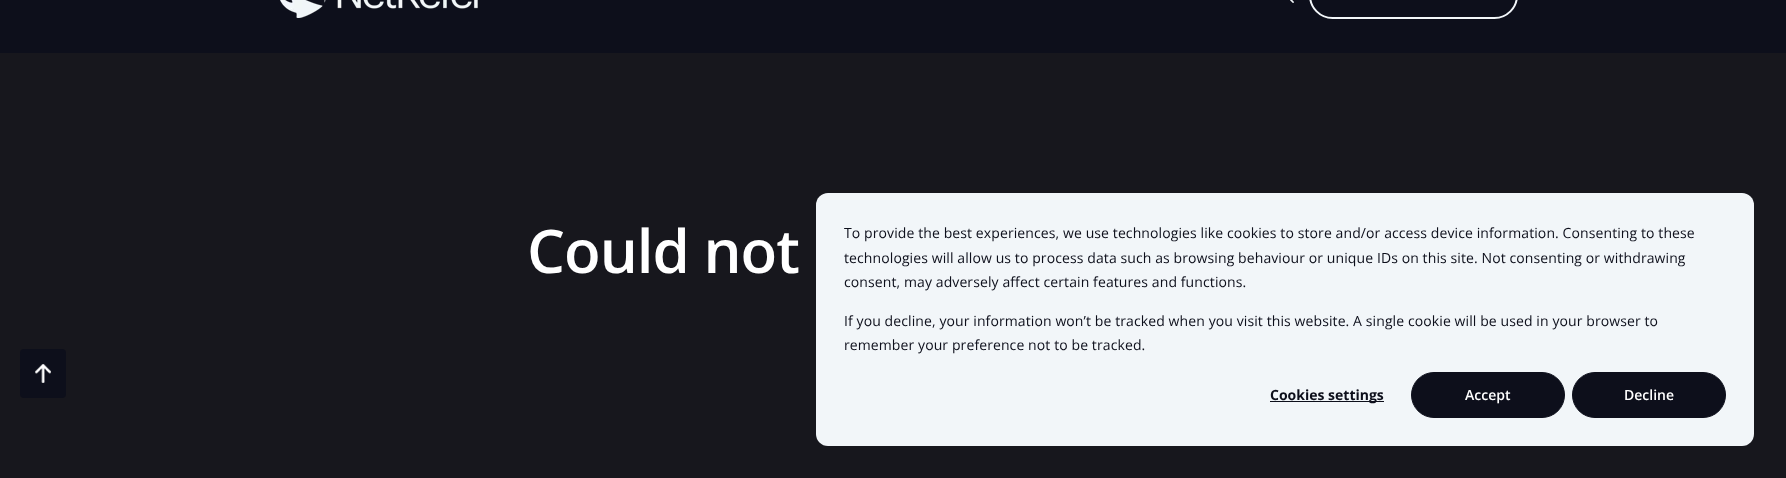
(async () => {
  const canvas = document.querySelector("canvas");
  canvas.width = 1786;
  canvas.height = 478;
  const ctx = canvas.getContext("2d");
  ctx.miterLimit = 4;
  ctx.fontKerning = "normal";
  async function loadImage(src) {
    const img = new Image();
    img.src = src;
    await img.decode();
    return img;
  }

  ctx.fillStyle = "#0d0f1b";
  ctx.fillRect(0, 0, 1786, 478);
  ctx.drawImage(await loadImage("img/1.png"), 280, 0, 198, 18);
  ctx.drawImage(await loadImage("img/2.png"), 1290, 0, 4, 3);
  ctx.beginPath();
  ctx.roundRect(1310, -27, 207, 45, 25);
  ctx.strokeStyle = "#f2f6f9";
  ctx.lineWidth = 2;
  ctx.stroke();
  ctx.fillStyle = "#17171d";
  ctx.fillRect(0, 53, 1786, 425);
  ctx.fillStyle = "#0d0f1b";
  ctx.beginPath();
  ctx.roundRect(20, 349, 46, 49, 4);
  ctx.fill();
  ctx.drawImage(await loadImage("img/3.png"), 35, 364, 16, 19);
  ctx.fillStyle = "#f2f6f9";
  ctx.beginPath();
  ctx.roundRect(816, 193, 938, 253, 12);
  ctx.fill();
  ctx.fillStyle = "#0d0f1b";
  ctx.fillRect(1270, 401, 114, 1);
  ctx.beginPath();
  ctx.roundRect(1411.5, 372.5, 153, 45, 22.5);
  ctx.fill();
  ctx.strokeStyle = "#0d0f1b";
  ctx.lineWidth = 1;
  ctx.stroke();
  ctx.beginPath();
  ctx.roundRect(1572.5, 372.5, 153, 45, 22.5);
  ctx.fill();
  ctx.stroke();
  ctx.letterSpacing = "-1px";
  ctx.font = "600 60px Open Sans";
  ctx.fillStyle = "#ffffff";
  ctx.fillText("Could not", 527, 273);
  ctx.letterSpacing = "0.1px";
  ctx.font = "14px Open Sans";
  ctx.fillStyle = "#0d0f1b";
  for (const [text, x, y] of [
    ["To provide the best experiences, we use technologies like cookies to store and/or access device information. Consenting to these", 844, 238],
    ["technologies will allow us to process data such as browsing behaviour or unique IDs on this site. Not consenting or withdrawing", 844, 263],
    ["consent, may adversely affect certain features and functions.", 844, 287],
    ["If you decline, your information won’t be tracked when you visit this website. A single cookie will be used in your browser to", 844, 326],
    ["remember your preference not to be tracked.", 844, 350],
  ]) {
    ctx.fillText(text, x, y);
  }
  ctx.letterSpacing = "0px";
  ctx.font = "bold 14px Open Sans";
  ctx.fillText("Cookies settings", 1270, 400);
  ctx.font = "600 14px Open Sans";
  ctx.fillStyle = "#ffffff";
  ctx.fillText("Accept", 1465, 400);
  ctx.fillText("Decline", 1624, 400);
})();
